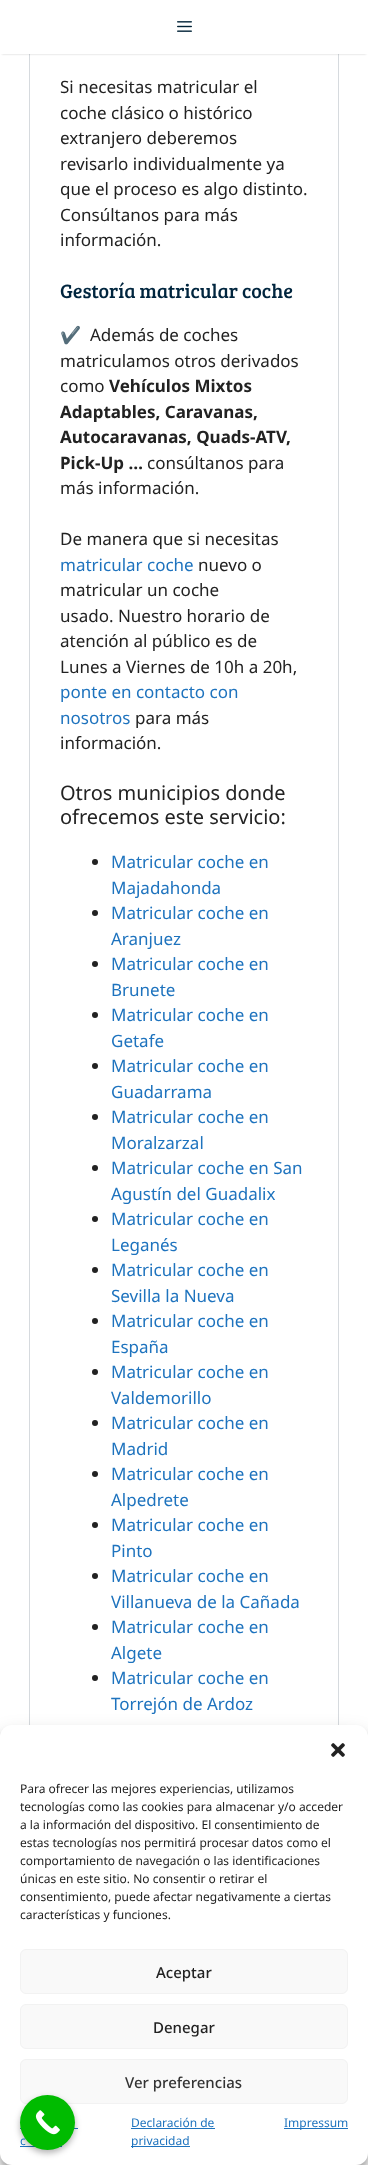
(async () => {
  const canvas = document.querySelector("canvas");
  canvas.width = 368;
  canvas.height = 2165;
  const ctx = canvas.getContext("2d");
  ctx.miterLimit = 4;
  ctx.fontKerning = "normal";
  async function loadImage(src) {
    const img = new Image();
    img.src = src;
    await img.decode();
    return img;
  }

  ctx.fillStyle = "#ffffff";
  ctx.fillRect(0, 0, 368, 2165);
  ctx.strokeStyle = "#d6dade";
  ctx.strokeRect(29.5, -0.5, 309, 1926);
  ctx.fillStyle = "rgba(0, 0, 0, 0.2)";
  ctx.filter = "blur(1px)";
  ctx.beginPath();
  ctx.rect(2, 4, 364, 50);
  ctx.fill();
  ctx.filter = "none";
  ctx.fillStyle = "#ffffff";
  ctx.fillRect(0, 0, 368, 54);
  ctx.drawImage(await loadImage("img/1.png"), 177, 21, 15, 11);
  ctx.fillStyle = "#222222";
  ctx.beginPath();
  ctx.arc(95, 862, 3, 0, Math.PI * 2);
  ctx.fill();
  ctx.beginPath();
  ctx.arc(95, 913, 3, 0, Math.PI * 2);
  ctx.fill();
  ctx.beginPath();
  ctx.arc(95, 964, 3, 0, Math.PI * 2);
  ctx.fill();
  ctx.beginPath();
  ctx.arc(95, 1015, 3, 0, Math.PI * 2);
  ctx.fill();
  ctx.beginPath();
  ctx.arc(95, 1066, 3, 0, Math.PI * 2);
  ctx.fill();
  ctx.beginPath();
  ctx.arc(95, 1117, 3, 0, Math.PI * 2);
  ctx.fill();
  ctx.beginPath();
  ctx.arc(95, 1168, 3, 0, Math.PI * 2);
  ctx.fill();
  ctx.beginPath();
  ctx.arc(95, 1219, 3, 0, Math.PI * 2);
  ctx.fill();
  ctx.beginPath();
  ctx.arc(95, 1270, 3, 0, Math.PI * 2);
  ctx.fill();
  ctx.beginPath();
  ctx.arc(95, 1321, 3, 0, Math.PI * 2);
  ctx.fill();
  ctx.beginPath();
  ctx.arc(95, 1372, 3, 0, Math.PI * 2);
  ctx.fill();
  ctx.beginPath();
  ctx.arc(95, 1423, 3, 0, Math.PI * 2);
  ctx.fill();
  ctx.beginPath();
  ctx.arc(95, 1474, 3, 0, Math.PI * 2);
  ctx.fill();
  ctx.beginPath();
  ctx.arc(95, 1525, 3, 0, Math.PI * 2);
  ctx.fill();
  ctx.beginPath();
  ctx.arc(95, 1576, 3, 0, Math.PI * 2);
  ctx.fill();
  ctx.beginPath();
  ctx.arc(95, 1627, 3, 0, Math.PI * 2);
  ctx.fill();
  ctx.beginPath();
  ctx.arc(95, 1678, 3, 0, Math.PI * 2);
  ctx.fill();
  ctx.fillStyle = "rgba(0, 0, 0, 0.23)";
  ctx.filter = "blur(3px)";
  ctx.beginPath();
  ctx.roundRect(0, 1731, 368, 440, 12);
  ctx.fill();
  ctx.filter = "none";
  ctx.fillStyle = "rgba(0, 0, 0, 0.19)";
  ctx.filter = "blur(10px)";
  ctx.beginPath();
  ctx.roundRect(0, 1735, 368, 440, 12);
  ctx.fill();
  ctx.filter = "none";
  ctx.fillStyle = "#ffffff";
  ctx.beginPath();
  ctx.roundRect(0, 1725, 368, 440, 12);
  ctx.fill();
  ctx.drawImage(await loadImage("img/2.png"), 331, 1743, 14, 14);
  ctx.fillStyle = "#f9f9f9";
  ctx.beginPath();
  ctx.roundRect(20.5, 1949.5, 327, 44, 5.5);
  ctx.fill();
  ctx.strokeStyle = "#f2f2f2";
  ctx.stroke();
  ctx.beginPath();
  ctx.roundRect(20.5, 2004.5, 327, 44, 5.5);
  ctx.fill();
  ctx.stroke();
  ctx.beginPath();
  ctx.roundRect(20.5, 2059.5, 327, 44, 5.5);
  ctx.fill();
  ctx.stroke();
  for (const [x, y, w, h, color] of [
    [131, 2128, 84, 1, "#1e73be"],
    [131, 2146, 59, 1, "#1e73be"],
    [284, 2128, 64, 1, "#1e73be"],
    [20, 2128, 58, 1, "#1e73be"],
    [20, 2146, 42, 1, "#1e73be"],
  ]) {
    ctx.fillStyle = color;
    ctx.fillRect(x, y, w, h);
  }
  ctx.fillStyle = "rgba(0, 0, 0, 0.3)";
  ctx.filter = "blur(3px)";
  ctx.beginPath();
  ctx.roundRect(20, 2098, 55, 55, 27.5);
  ctx.fill();
  ctx.filter = "none";
  ctx.font = "17px Noto Sans";
  ctx.fillStyle = "#222222";
  for (const [text, x, y] of [
    ["Si necesitas matricular el", 60, 93],
    ["coche clásico o histórico", 60, 119],
    ["extranjero deberemos", 60, 144],
    ["revisarlo individualmente ya", 60, 170],
    ["que el proceso es algo distinto.", 60, 195],
    ["Consúltanos para más", 60, 221],
    ["información.", 60, 246],
  ]) {
    ctx.fillText(text, x, y);
  }
  ctx.font = "20px Bree Serif";
  ctx.fillStyle = "#00253e";
  ctx.fillText("Gestoría matricular coche", 60, 298);
  ctx.font = "17px Noto Color Emoji";
  ctx.fillStyle = "#222222";
  ctx.fillText("✔️", 60, 341);
  ctx.font = "17px Noto Sans";
  for (const [text, x, y] of [
    ["Además de coches", 90, 341],
    ["matriculamos otros derivados", 60, 367],
    ["como", 60, 392],
  ]) {
    ctx.fillText(text, x, y);
  }
  ctx.font = "bold 17px Noto Sans";
  for (const [text, x, y] of [
    ["Vehículos Mixtos", 109, 392],
    ["Adaptables, Caravanas,", 60, 418],
    ["Autocaravanas, Quads-ATV,", 60, 443],
    ["Pick-Up …", 60, 469],
  ]) {
    ctx.fillText(text, x, y);
  }
  ctx.font = "17px Noto Sans";
  for (const [text, x, y] of [
    ["consúltanos para", 147, 469],
    ["más información.", 60, 494],
    ["De manera que si necesitas", 60, 545],
  ]) {
    ctx.fillText(text, x, y);
  }
  ctx.fillStyle = "#1e73be";
  ctx.fillText("matricular coche", 60, 571);
  ctx.fillStyle = "#222222";
  for (const [text, x, y] of [
    ["nuevo o", 198, 571],
    ["matricular un coche", 60, 596],
    ["usado. Nuestro horario de", 60, 622],
    ["atención al público es de", 60, 647],
    ["Lunes a Viernes de 10h a 20h,", 60, 673],
  ]) {
    ctx.fillText(text, x, y);
  }
  ctx.fillStyle = "#1e73be";
  ctx.fillText("ponte en contacto con", 60, 698);
  ctx.fillText("nosotros", 60, 724);
  ctx.fillStyle = "#222222";
  ctx.fillText("para más", 135, 724);
  ctx.fillText("información.", 60, 749);
  ctx.font = "20px Noto Sans";
  ctx.fillText("Otros municipios donde", 60, 800);
  ctx.fillText("ofrecemos este servicio:", 60, 824);
  ctx.font = "17px Noto Sans";
  ctx.fillStyle = "#1e73be";
  for (const [text, x, y] of [
    ["Matricular coche en", 111, 868],
    ["Majadahonda", 111, 894],
    ["Matricular coche en", 111, 919],
    ["Aranjuez", 111, 945],
    ["Matricular coche en", 111, 970],
    ["Brunete", 111, 996],
    ["Matricular coche en", 111, 1021],
    ["Getafe", 111, 1047],
    ["Matricular coche en", 111, 1072],
    ["Guadarrama", 111, 1098],
    ["Matricular coche en", 111, 1123],
    ["Moralzarzal", 111, 1149],
    ["Matricular coche en San", 111, 1174],
    ["Agustín del Guadalix", 111, 1200],
    ["Matricular coche en", 111, 1225],
    ["Leganés", 111, 1251],
    ["Matricular coche en", 111, 1276],
    ["Sevilla la Nueva", 111, 1302],
    ["Matricular coche en", 111, 1327],
    ["España", 111, 1353],
    ["Matricular coche en", 111, 1378],
    ["Valdemorillo", 111, 1404],
    ["Matricular coche en", 111, 1429],
    ["Madrid", 111, 1455],
    ["Matricular coche en", 111, 1480],
    ["Alpedrete", 111, 1506],
    ["Matricular coche en", 111, 1531],
    ["Pinto", 111, 1557],
    ["Matricular coche en", 111, 1582],
    ["Villanueva de la Cañada", 111, 1608],
    ["Matricular coche en", 111, 1633],
    ["Algete", 111, 1659],
    ["Matricular coche en", 111, 1684],
    ["Torrejón de Ardoz", 111, 1710],
  ]) {
    ctx.fillText(text, x, y);
  }
  ctx.font = "12px Noto Sans";
  ctx.fillStyle = "#222222";
  for (const [text, x, y] of [
    ["Para ofrecer las mejores experiencias, utilizamos", 20, 1793],
    ["tecnologías como las cookies para almacenar y/o acceder", 20, 1811],
    ["a la información del dispositivo. El consentimiento de", 20, 1829],
    ["estas tecnologías nos permitirá procesar datos como el", 20, 1847],
    ["comportamiento de navegación o las identificaciones", 20, 1865],
    ["únicas en este sitio. No consentir o retirar el", 20, 1883],
    ["consentimiento, puede afectar negativamente a ciertas", 20, 1901],
    ["características y funciones.", 20, 1919],
  ]) {
    ctx.fillText(text, x, y);
  }
  ctx.font = "500 15px Noto Sans";
  ctx.fillText("Aceptar", 156, 1978);
  ctx.fillText("Denegar", 153, 2033);
  ctx.fillStyle = "#333333";
  ctx.fillText("Ver preferencias", 125, 2088);
  ctx.font = "12px Noto Sans";
  ctx.fillStyle = "#1e73be";
  for (const [text, x, y] of [
    ["Declaración de", 131, 2127],
    ["privacidad", 131, 2145],
    ["Impressum", 284, 2127],
    ["c", 20, 2145],
  ]) {
    ctx.fillText(text, x, y);
  }
  ctx.fillStyle = "#00bb00";
  ctx.beginPath();
  ctx.arc(47.5, 2122.5, 27.5, 0, Math.PI * 2);
  ctx.fill();
  ctx.drawImage(await loadImage("img/3.png"), 35, 2110, 25, 25);
})();
